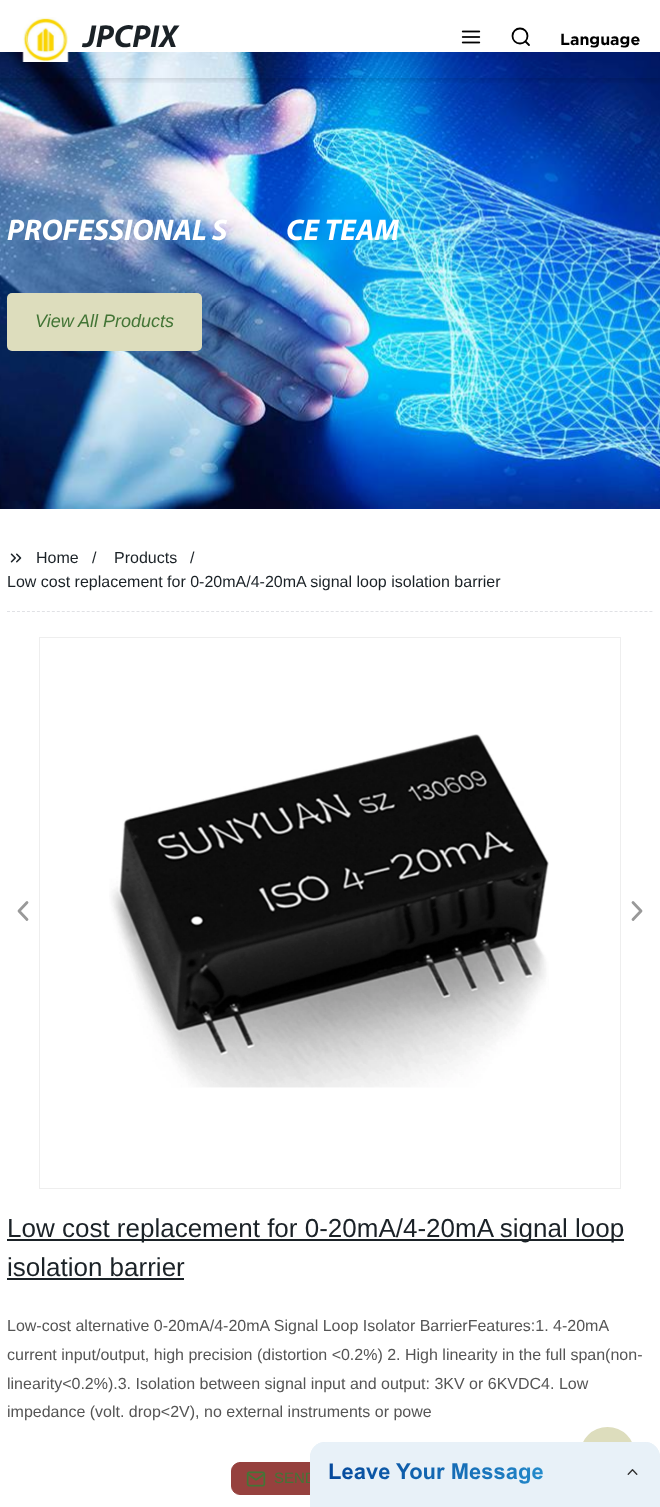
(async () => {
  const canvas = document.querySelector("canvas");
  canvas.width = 660;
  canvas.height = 1507;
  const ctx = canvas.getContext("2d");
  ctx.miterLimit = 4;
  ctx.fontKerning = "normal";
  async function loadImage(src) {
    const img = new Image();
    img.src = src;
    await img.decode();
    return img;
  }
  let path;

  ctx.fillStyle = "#ffffff";
  ctx.fillRect(0, 0, 660, 1507);
  ctx.drawImage(await loadImage("img/3.png"), 0, 52, 660, 457);
  ctx.save();
  ctx.beginPath();
  ctx.rect(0, 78, 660, 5);
  ctx.clip();
  ctx.fillStyle = "rgba(0, 0, 0, 0.2)";
  ctx.filter = "blur(4px)";
  ctx.beginPath();
  ctx.rect(0, 0, 660, 78);
  ctx.fill();
  ctx.filter = "none";
  ctx.restore();
  ctx.drawImage(await loadImage("img/1.png"), 22, 17, 47, 45);
  ctx.drawImage(await loadImage("img/2.png"), 461, 30, 20, 14);
  ctx.beginPath();
  ctx.arc(520, 36, 7.5, 0, Math.PI * 2);
  ctx.strokeStyle = "#000000";
  ctx.lineWidth = 1.8;
  ctx.stroke();
  path = new Path2D("M529 45L525.5 41.5");
  ctx.lineCap = "round";
  ctx.lineJoin = "round";
  ctx.stroke(path);
  ctx.fillStyle = "#ddddbd";
  ctx.beginPath();
  ctx.roundRect(7, 293, 195, 58, 5);
  ctx.fill();
  path = new Path2D("M7 611.5H653");
  ctx.strokeStyle = "#e0e1e5";
  ctx.lineWidth = 1;
  ctx.lineCap = "butt";
  ctx.lineJoin = "miter";
  ctx.setLineDash([3, 1.98]);
  ctx.stroke(path);
  ctx.drawImage(await loadImage("img/4.png"), 10, 553, 12, 10);
  ctx.strokeStyle = "#eeeeee";
  ctx.setLineDash([]);
  ctx.strokeRect(39.5, 637.5, 581, 551);
  path = new Path2D("M27 919.5L19 911L27 902.5");
  ctx.strokeStyle = "#999999";
  ctx.lineWidth = 2.8;
  ctx.lineCap = "round";
  ctx.lineJoin = "round";
  ctx.stroke(path);
  ctx.drawImage(await loadImage("img/5.png"), 109, 734, 440, 354);
  path = new Path2D("M633 919.5L641 911L633 902.5");
  ctx.stroke(path);
  ctx.fillStyle = "#1b2227";
  ctx.fillRect(7, 1239, 617, 2);
  ctx.fillRect(7, 1278, 177, 2);
  ctx.fillStyle = "#96413e";
  ctx.beginPath();
  ctx.roundRect(231.5, 1462.5, 197, 32, 8.5);
  ctx.fill();
  ctx.strokeStyle = "#96413e";
  ctx.lineWidth = 1;
  ctx.lineJoin = "miter";
  ctx.stroke();
  ctx.drawImage(await loadImage("img/6.png"), 246, 1471, 20, 16);
  ctx.fillStyle = "#ddddbd";
  ctx.beginPath();
  ctx.arc(607.5, 1454.5, 27.5, 0, Math.PI * 2);
  ctx.fill();
  ctx.font = "italic bold 32px Myriad";
  ctx.fillStyle = "#1b2227";
  ctx.fillText("JPCPIX", 83, 47);
  ctx.font = "bold 16px Gotham";
  ctx.fillStyle = "#000000";
  ctx.fillText("Language", 560, 45);
  ctx.font = "italic bold 30px Myriad";
  ctx.fillStyle = "#ffffff";
  ctx.fillText("PROFESSIONAL S", 7, 240);
  ctx.fillText("CE TEAM", 286, 240);
  ctx.font = "italic 18px Liberation Sans";
  ctx.fillStyle = "#437536";
  ctx.fillText("View All Products", 35, 327);
  ctx.font = "16px Liberation Sans";
  ctx.fillStyle = "#1b2227";
  for (const [text, x, y] of [
    ["Home", 36, 563],
    ["/", 92, 563],
    ["Products", 114, 563],
    ["/", 190, 563],
    ["Low cost replacement for 0-20mA/4-20mA signal loop isolation barrier", 7, 587],
  ]) {
    ctx.fillText(text, x, y);
  }
  ctx.font = "26px Liberation Sans";
  ctx.fillText("Low cost replacement for 0-20mA/4-20mA signal loop", 7, 1237);
  ctx.fillText("isolation barrier", 7, 1276);
  ctx.font = "16px Liberation Sans";
  ctx.fillStyle = "#555555";
  for (const [text, x, y] of [
    ["Low-cost alternative 0-20mA/4-20mA Signal Loop Isolator BarrierFeatures:1. 4-20mA", 7, 1331],
    ["current input/output, high precision (distortion <0.2%) 2. High linearity in the full span(non-", 7, 1360],
    ["linearity<0.2%).3. Isolation between signal input and output: 3KV or 6KVDC4. Low", 7, 1389],
    ["impedance (volt. drop<2V), no external instruments or powe", 7, 1417],
  ]) {
    ctx.fillText(text, x, y);
  }
  ctx.font = "15px Liberation Sans";
  ctx.fillStyle = "#437536";
  ctx.fillText("SEND", 274, 1483);
  ctx.drawImage(await loadImage("img/7.png"), 310, 1442, 350, 65);
})();
